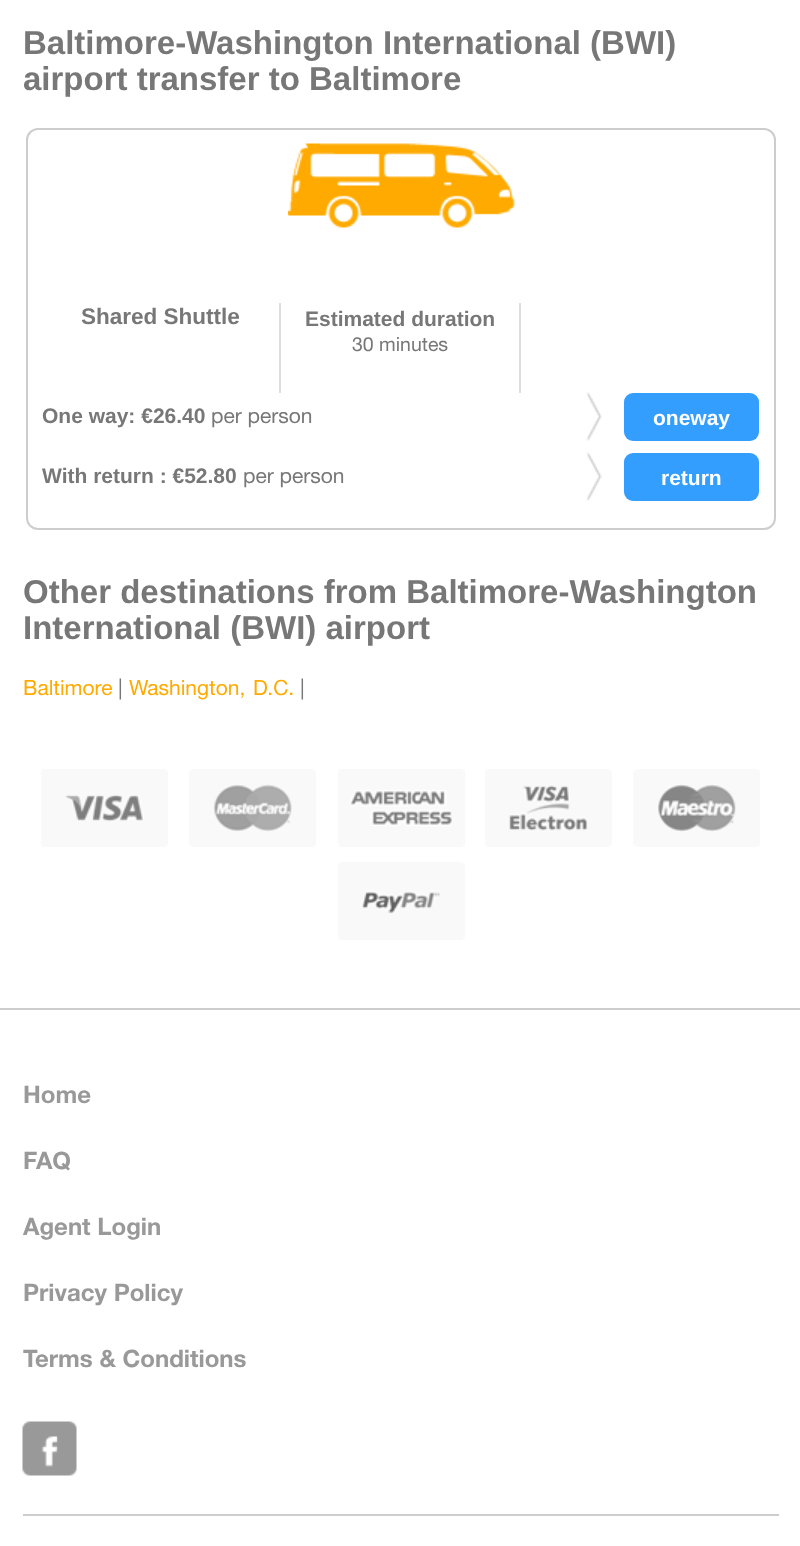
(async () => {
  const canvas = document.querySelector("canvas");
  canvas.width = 800;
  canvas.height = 1546;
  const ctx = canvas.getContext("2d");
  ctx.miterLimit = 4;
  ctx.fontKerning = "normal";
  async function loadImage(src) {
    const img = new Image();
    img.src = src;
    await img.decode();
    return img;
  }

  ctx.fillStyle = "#ffffff";
  ctx.fillRect(0, 0, 800, 1546);
  ctx.beginPath();
  ctx.roundRect(27, 129, 748, 400, 11);
  ctx.strokeStyle = "#cdcdcd";
  ctx.lineWidth = 2;
  ctx.stroke();
  ctx.drawImage(await loadImage("img/1.png"), 288, 143, 227, 85);
  ctx.fillStyle = "#dddddd";
  ctx.fillRect(279, 303, 2, 90);
  ctx.fillRect(519, 303, 2, 90);
  ctx.drawImage(await loadImage("img/2.png"), 586, 392, 16, 49);
  ctx.fillStyle = "#349eff";
  ctx.beginPath();
  ctx.roundRect(624, 393, 135, 48, 9);
  ctx.fill();
  ctx.drawImage(await loadImage("img/2.png"), 586, 452, 16, 49);
  ctx.beginPath();
  ctx.roundRect(624, 453, 135, 48, 9);
  ctx.fill();
  ctx.fillStyle = "#cdcdcd";
  ctx.fillRect(0, 1008, 800, 2);
  ctx.drawImage(await loadImage("img/3.png"), 41, 769, 127, 78);
  ctx.drawImage(await loadImage("img/4.png"), 189, 769, 127, 78);
  ctx.drawImage(await loadImage("img/5.png"), 338, 769, 127, 78);
  ctx.drawImage(await loadImage("img/6.png"), 485, 769, 127, 78);
  ctx.drawImage(await loadImage("img/7.png"), 633, 769, 127, 78);
  ctx.drawImage(await loadImage("img/8.png"), 338, 862, 127, 78);
  ctx.drawImage(await loadImage("img/9.png"), 22, 1421, 55, 55);
  ctx.fillRect(23, 1514, 756, 2);
  ctx.font = "bold 33px Liberation Sans";
  ctx.fillStyle = "#777777";
  ctx.fillText("Baltimore-Washington International (BWI)", 23, 54);
  ctx.fillText("airport transfer to Baltimore", 23, 90);
  ctx.font = "bold 22.5px Liberation Sans";
  ctx.fillText("Shared Shuttle", 81, 324);
  ctx.font = "bold 21px Liberation Sans";
  ctx.fillText("Estimated duration", 305, 326);
  ctx.font = "19.5px 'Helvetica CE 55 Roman'";
  ctx.fillText("30 minutes", 352, 351);
  ctx.font = "bold 21px Liberation Sans";
  ctx.fillText("One way: €26.40", 42, 423);
  ctx.font = "21px 'Helvetica CE 55 Roman'";
  ctx.fillText("per person", 211, 423);
  ctx.font = "bold 21px Liberation Sans";
  ctx.fillStyle = "#ffffff";
  ctx.fillText("oneway", 653, 425);
  ctx.fillStyle = "#777777";
  ctx.fillText("With return : €52.80", 42, 483);
  ctx.font = "21px 'Helvetica CE 55 Roman'";
  ctx.fillText("per person", 243, 483);
  ctx.font = "bold 21px Liberation Sans";
  ctx.fillStyle = "#ffffff";
  ctx.fillText("return", 661, 485);
  ctx.font = "bold 33px Liberation Sans";
  ctx.fillStyle = "#777777";
  ctx.fillText("Other destinations from Baltimore-Washington", 23, 603);
  ctx.fillText("International (BWI) airport", 23, 639);
  ctx.font = "21px 'Helvetica CE 55 Roman'";
  ctx.fillStyle = "#ffaa00";
  ctx.fillText("Baltimore", 23, 695);
  ctx.fillStyle = "#777777";
  ctx.fillText("|", 118, 695);
  ctx.wordSpacing = "2px";
  ctx.fillStyle = "#ffaa00";
  ctx.fillText("Washington, D.C.", 129, 695);
  ctx.wordSpacing = "0px";
  ctx.fillStyle = "#777777";
  ctx.fillText("|", 300, 695);
  ctx.font = "bold 24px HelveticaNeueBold";
  ctx.fillStyle = "#999999";
  for (const [text, x, y] of [
    ["Home", 23, 1103],
    ["FAQ", 23, 1169],
    ["Agent Login", 23, 1235],
    ["Privacy Policy", 23, 1301],
    ["Terms & Conditions", 23, 1367],
  ]) {
    ctx.fillText(text, x, y);
  }
})();
